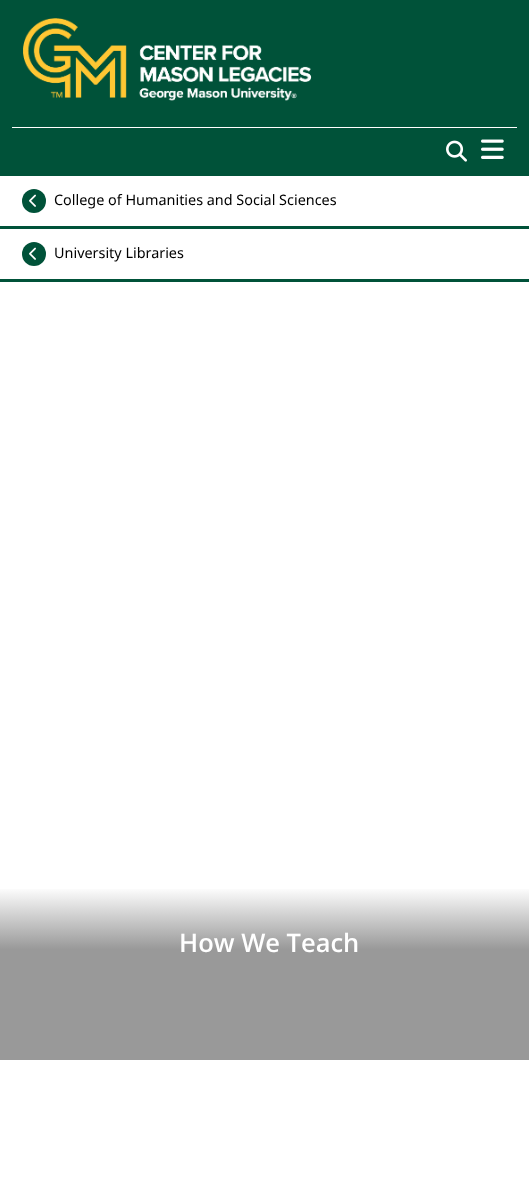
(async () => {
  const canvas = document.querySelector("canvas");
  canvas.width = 529;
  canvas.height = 1179;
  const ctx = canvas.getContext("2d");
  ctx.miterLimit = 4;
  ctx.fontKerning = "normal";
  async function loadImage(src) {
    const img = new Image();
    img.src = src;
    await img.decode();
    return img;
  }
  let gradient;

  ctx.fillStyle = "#ffffff";
  ctx.fillRect(0, 0, 529, 1179);
  ctx.fillStyle = "#005239";
  ctx.fillRect(0, 0, 529, 176);
  ctx.drawImage(await loadImage("img/1.png"), 23, 18, 289, 83);
  ctx.fillStyle = "#ffffff";
  ctx.fillRect(12, 127, 505, 1);
  ctx.drawImage(await loadImage("img/2.png"), 446, 140, 21, 22);
  ctx.drawImage(await loadImage("img/3.png"), 481, 139, 23, 20);
  ctx.fillStyle = "#005239";
  ctx.beginPath();
  ctx.arc(34, 201, 12, 0, Math.PI * 2);
  ctx.fill();
  ctx.drawImage(await loadImage("img/4.png"), 29, 194, 7, 13);
  ctx.fillRect(0, 226, 529, 3);
  ctx.fillRect(0, 279, 529, 3);
  ctx.beginPath();
  ctx.arc(34, 254, 12, 0, Math.PI * 2);
  ctx.fill();
  ctx.drawImage(await loadImage("img/4.png"), 29, 247, 7, 13);
  gradient = ctx.createLinearGradient(265, 1060, 265, 887);
  gradient.addColorStop(0.64, "#999999");
  gradient.addColorStop(1, "#ffffff");
  ctx.fillStyle = gradient;
  ctx.fillRect(0, 889, 529, 171);
  ctx.font = "14.4px Noto Sans";
  ctx.fillStyle = "#000000";
  ctx.fillText("College of Humanities and Social Sciences", 54, 205);
  ctx.fillText("University Libraries", 54, 258);
  ctx.font = "600 25.5px Open Sans";
  ctx.fillStyle = "#ffffff";
  ctx.fillText("How We Teach", 179, 952);
})();
